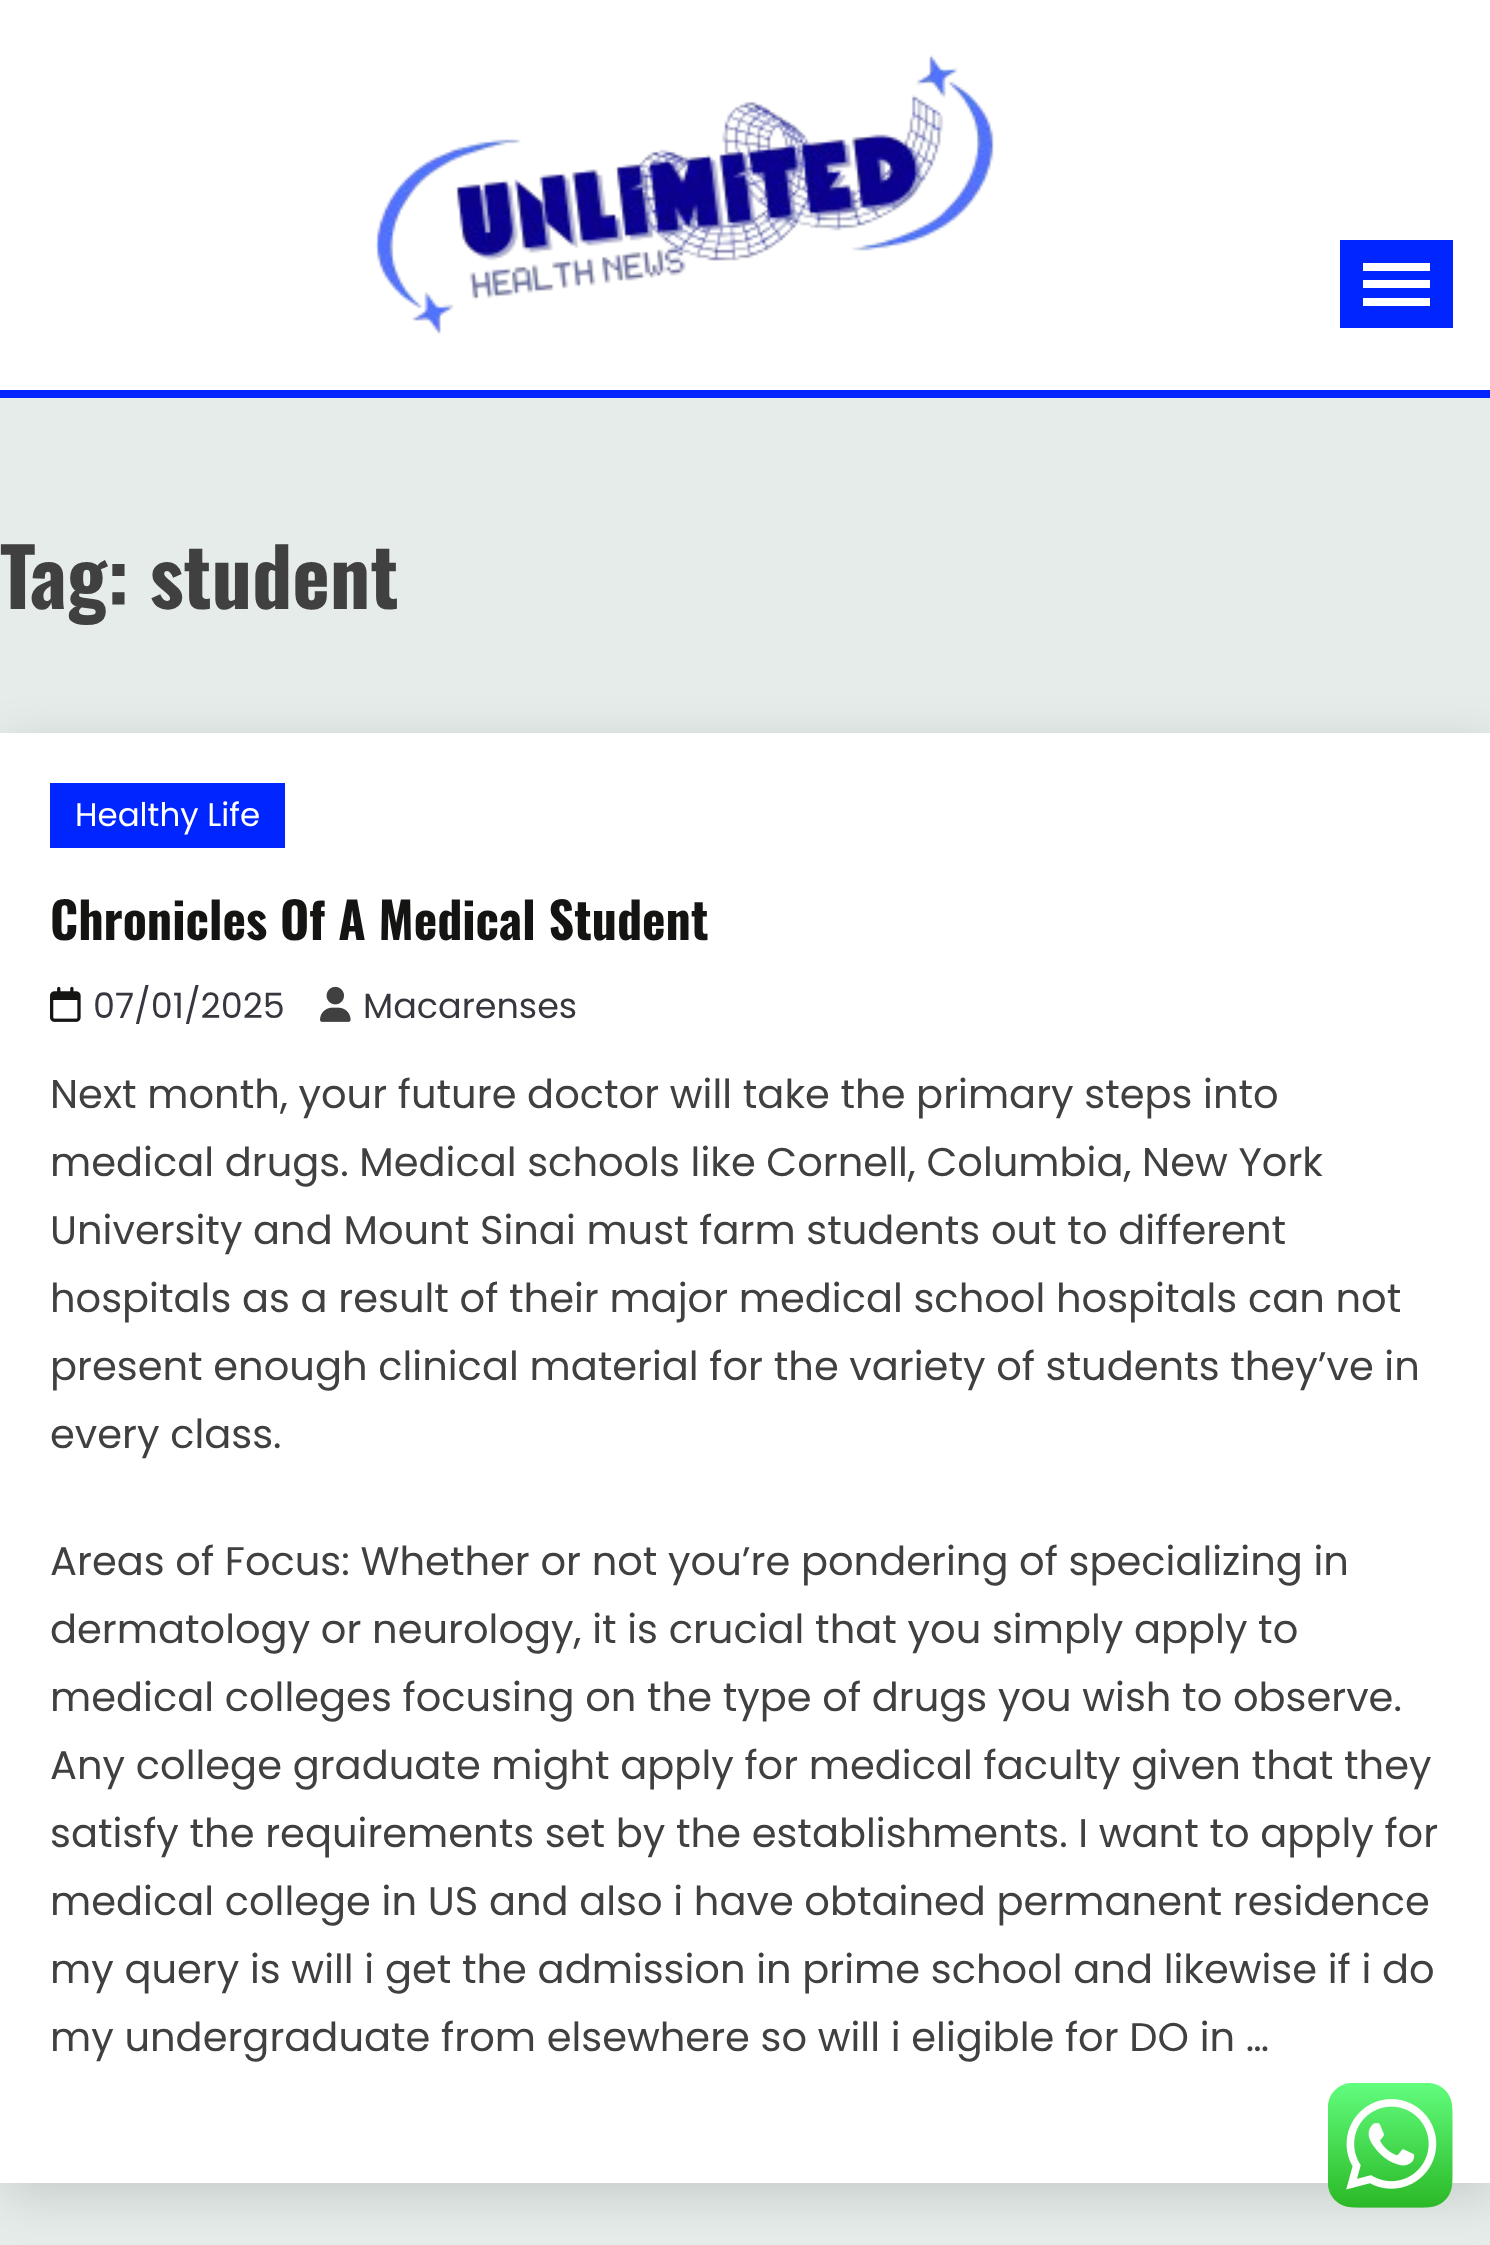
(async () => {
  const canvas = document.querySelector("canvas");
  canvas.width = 1490;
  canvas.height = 2245;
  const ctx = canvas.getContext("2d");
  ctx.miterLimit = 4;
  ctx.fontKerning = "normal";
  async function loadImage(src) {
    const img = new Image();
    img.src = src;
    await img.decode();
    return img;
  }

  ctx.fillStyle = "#e5ece9";
  ctx.fillRect(0, 0, 1490, 2245);
  ctx.fillStyle = "#ffffff";
  ctx.fillRect(0, 0, 1490, 390);
  ctx.drawImage(await loadImage("img/1.png"), 375, 54, 619, 281);
  for (const [x, y, w, h, color] of [
    [1340, 240, 113, 88, "#0025ff"],
    [1363, 263, 67, 8, "#ffffff"],
    [1363, 280, 67, 8, "#ffffff"],
    [1363, 298, 67, 8, "#ffffff"],
    [0, 390, 1490, 8, "#0025ff"],
  ]) {
    ctx.fillStyle = color;
    ctx.fillRect(x, y, w, h);
  }
  ctx.fillStyle = "rgba(0, 0, 0, 0.14)";
  ctx.filter = "blur(25px)";
  ctx.beginPath();
  ctx.rect(5, 745, 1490, 1450);
  ctx.fill();
  ctx.filter = "none";
  ctx.fillStyle = "#ffffff";
  ctx.fillRect(0, 733, 1490, 1450);
  ctx.fillStyle = "#0025ff";
  ctx.fillRect(50, 783, 235, 65);
  ctx.drawImage(await loadImage("img/2.png"), 50, 986, 31, 36);
  ctx.drawImage(await loadImage("img/3.png"), 320, 986, 31, 36);
  ctx.drawImage(await loadImage("img/4.png"), 1328, 2083, 125, 125);
  ctx.font = "bold 80px Oswald";
  ctx.fillStyle = "#404040";
  ctx.fillText("Tag: student", 0, 609);
  ctx.font = "32.5px Poppins";
  ctx.fillStyle = "#ffffff";
  ctx.fillText("Healthy Life", 75, 826);
  ctx.font = "bold 50px Oswald";
  ctx.fillStyle = "#141413";
  ctx.fillText("Chronicles Of A Medical Student", 50, 940);
  ctx.font = "35px Poppins";
  ctx.fillStyle = "#37373f";
  ctx.fillText("07/01/2025", 93, 1018);
  ctx.fillText("Macarenses", 363, 1018);
  ctx.font = "40px Poppins";
  ctx.fillStyle = "#404040";
  for (const [text, x, y] of [
    ["Next month, your future doctor will take the primary steps into", 50, 1108],
    ["medical drugs. Medical schools like Cornell, Columbia, New York", 50, 1176],
    ["University and Mount Sinai must farm students out to different", 50, 1244],
    ["hospitals as a result of their major medical school hospitals can not", 50, 1312],
    ["present enough clinical material for the variety of students they’ve in", 50, 1380],
    ["every class.", 50, 1448],
    ["Areas of Focus: Whether or not you’re pondering of specializing in", 50, 1575],
    ["dermatology or neurology, it is crucial that you simply apply to", 50, 1643],
    ["medical colleges focusing on the type of drugs you wish to observe.", 50, 1711],
    ["Any college graduate might apply for medical faculty given that they", 50, 1779],
    ["satisfy the requirements set by the establishments. I want to apply for", 50, 1847],
    ["medical college in US and also i have obtained permanent residence", 50, 1915],
    ["my query is will i get the admission in prime school and likewise if i do", 50, 1983],
    ["my undergraduate from elsewhere so will i eligible for DO in …", 50, 2051],
  ]) {
    ctx.fillText(text, x, y);
  }
})();
